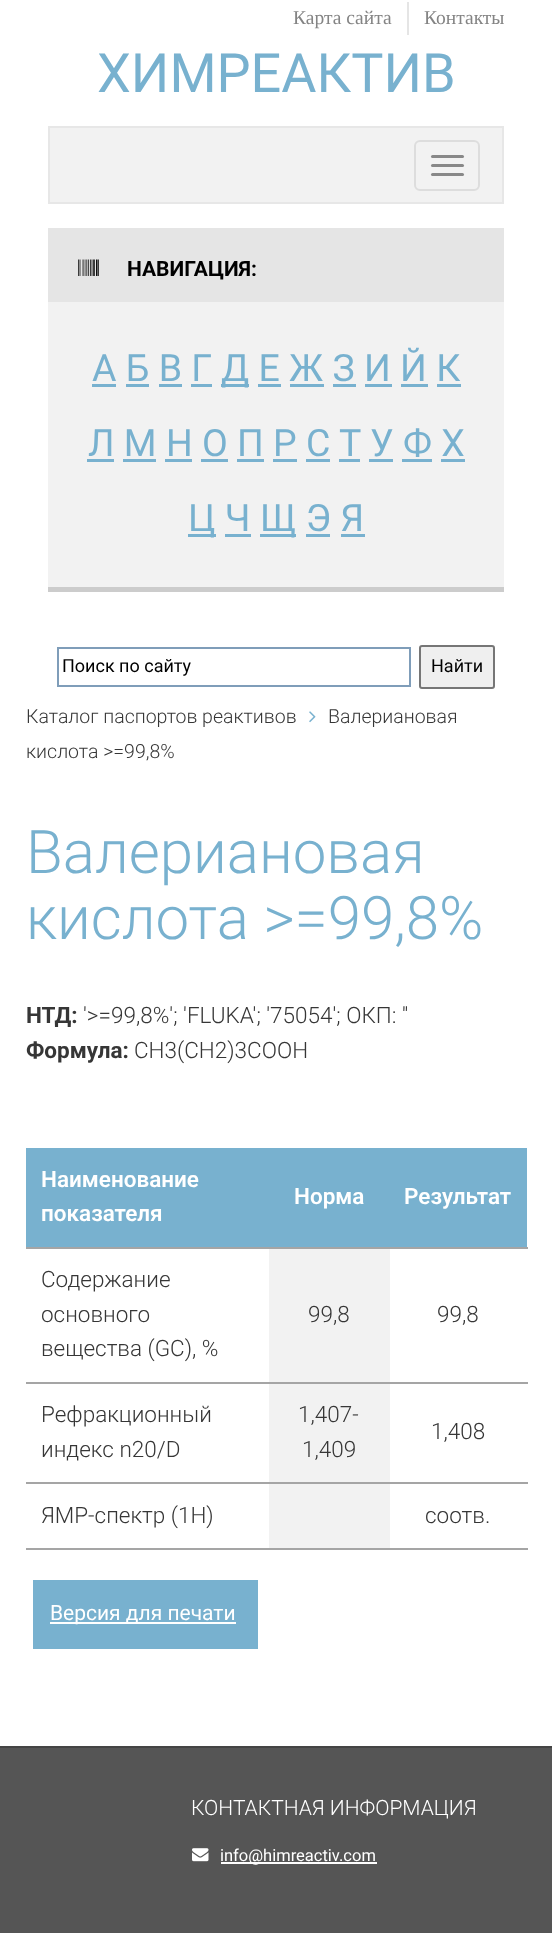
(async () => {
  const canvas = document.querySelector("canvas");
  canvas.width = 552;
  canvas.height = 1933;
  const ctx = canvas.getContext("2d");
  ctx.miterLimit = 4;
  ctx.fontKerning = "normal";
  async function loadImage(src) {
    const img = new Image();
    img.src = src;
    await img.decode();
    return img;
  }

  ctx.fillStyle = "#ffffff";
  ctx.fillRect(0, 0, 552, 1933);
  ctx.fillStyle = "#e5e5e5";
  ctx.fillRect(407, 2, 2, 33);
  ctx.fillStyle = "#f2f2f2";
  ctx.beginPath();
  ctx.rect(49, 127, 454, 76);
  ctx.fill();
  ctx.strokeStyle = "#e7e7e7";
  ctx.lineWidth = 2;
  ctx.stroke();
  ctx.beginPath();
  ctx.roundRect(415, 141, 64, 49, 5);
  ctx.strokeStyle = "#dddddd";
  ctx.stroke();
  ctx.fillStyle = "#888888";
  ctx.beginPath();
  ctx.roundRect(431, 155, 33, 3, 1.5);
  ctx.fill();
  ctx.beginPath();
  ctx.roundRect(431, 164, 33, 3, 1.5);
  ctx.fill();
  ctx.beginPath();
  ctx.roundRect(431, 173, 33, 3, 1.5);
  ctx.fill();
  ctx.fillStyle = "#cccccc";
  ctx.fillRect(48, 587, 456, 5);
  ctx.fillStyle = "#e5e5e5";
  ctx.fillRect(48, 228, 456, 74);
  ctx.drawImage(await loadImage("img/1.png"), 78, 259, 21, 17);
  for (const [x, y, w, h, color] of [
    [48, 302, 456, 285, "#f2f2f2"],
    [92, 384, 24, 3, "#78b1cf"],
    [221, 384, 28, 3, "#78b1cf"],
    [126, 384, 23, 3, "#78b1cf"],
    [159, 384, 23, 3, "#78b1cf"],
    [191, 384, 21, 3, "#78b1cf"],
    [258, 384, 23, 3, "#78b1cf"],
    [290, 384, 34, 3, "#78b1cf"],
    [333, 384, 23, 3, "#78b1cf"],
    [365, 384, 27, 3, "#78b1cf"],
    [401, 384, 27, 3, "#78b1cf"],
    [437, 384, 24, 3, "#78b1cf"],
    [87, 459, 27, 3, "#78b1cf"],
    [339, 459, 21, 3, "#78b1cf"],
    [369, 459, 24, 3, "#78b1cf"],
    [123, 459, 33, 3, "#78b1cf"],
    [165, 459, 27, 3, "#78b1cf"],
    [201, 459, 27, 3, "#78b1cf"],
    [237, 459, 27, 3, "#78b1cf"],
    [273, 459, 24, 3, "#78b1cf"],
    [306, 459, 24, 3, "#78b1cf"],
    [402, 459, 30, 3, "#78b1cf"],
    [441, 459, 24, 3, "#78b1cf"],
    [188, 534, 28, 3, "#78b1cf"],
    [260, 534, 36, 3, "#78b1cf"],
    [225, 534, 26, 3, "#78b1cf"],
    [306, 534, 24, 3, "#78b1cf"],
    [341, 534, 24, 3, "#78b1cf"],
  ]) {
    ctx.fillStyle = color;
    ctx.fillRect(x, y, w, h);
  }
  ctx.strokeStyle = "#7f9db9";
  ctx.strokeRect(58, 648, 352, 38);
  ctx.fillStyle = "#efefef";
  ctx.beginPath();
  ctx.roundRect(420, 646, 74, 42, 2);
  ctx.fill();
  ctx.strokeStyle = "#767676";
  ctx.stroke();
  ctx.drawImage(await loadImage("img/2.png"), 309, 711, 7, 12);
  for (const [x, y, w, h, color] of [
    [26, 1148, 501, 99, "#78b1cf"],
    [26, 1247, 502, 2, "#a5a5a5"],
    [269, 1249, 121, 133, "#f2f2f2"],
    [26, 1382, 502, 2, "#a5a5a5"],
    [269, 1384, 121, 98, "#f2f2f2"],
    [26, 1482, 502, 2, "#a5a5a5"],
    [269, 1484, 121, 64, "#f2f2f2"],
    [26, 1548, 502, 2, "#a5a5a5"],
    [33, 1580, 225, 69, "#78b1cf"],
    [50, 1622, 186, 2, "#ffffff"],
    [0, 1748, 552, 185, "#555555"],
    [0, 1746, 552, 2, "#444444"],
  ]) {
    ctx.fillStyle = color;
    ctx.fillRect(x, y, w, h);
  }
  ctx.drawImage(await loadImage("img/3.png"), 192, 1848, 17, 14);
  ctx.fillStyle = "#ffffff";
  ctx.fillRect(221, 1862, 156, 2);
  ctx.font = "19.5px Liberation Serif";
  ctx.fillStyle = "#848484";
  ctx.fillText("Карта сайта", 293, 24);
  ctx.fillText("Контакты", 424, 24);
  ctx.font = "54px Roboto";
  ctx.fillStyle = "#78b1cf";
  ctx.fillText("ХИМРЕАКТИВ", 97, 92);
  ctx.font = "bold 21px Roboto";
  ctx.fillStyle = "#000000";
  ctx.fillText("НАВИГАЦИЯ:", 127, 276);
  ctx.font = "37.5px Roboto";
  ctx.fillStyle = "#78b1cf";
  for (const [text, x, y] of [
    ["А Б В Г", 92, 381],
    ["Д Е Ж З И Й К", 221, 381],
    ["Л М Н О П Р С", 88, 456],
    ["Т", 339, 456],
    ["У Ф Х", 370, 456],
    ["Ц Ч", 188, 531],
    ["Щ Э Я", 260, 531],
  ]) {
    ctx.fillText(text, x, y);
  }
  ctx.font = "18px Roboto";
  ctx.fillStyle = "#000000";
  ctx.fillText("Поиск по сайту", 62, 672);
  ctx.fillText("Найти", 431, 672);
  ctx.font = "300 19.5px Roboto";
  ctx.fillStyle = "#363636";
  for (const [text, x, y] of [
    ["Каталог паспортов реактивов", 26, 723],
    ["Валериановая", 328, 723],
    ["кислота >=99,8%", 26, 758],
  ]) {
    ctx.fillText(text, x, y);
  }
  ctx.font = "300 60px Roboto";
  ctx.fillStyle = "#78b1cf";
  ctx.fillText("Валериановая", 26, 873);
  ctx.fillText("кислота >=99,8%", 26, 939);
  ctx.font = "bold 22.5px Roboto";
  ctx.fillStyle = "#363636";
  ctx.fillText("НТД:", 26, 1023);
  ctx.font = "300 22.5px Roboto";
  ctx.fillText("'>=99,8%'; 'FLUKA'; '75054'; ОКП: ''", 83, 1023);
  ctx.font = "bold 22.5px Roboto";
  ctx.fillText("Формула:", 26, 1058);
  ctx.font = "300 22.5px Roboto";
  ctx.fillText("CH3(CH2)3COOH", 134, 1058);
  ctx.font = "600 22.5px Roboto";
  ctx.fillStyle = "#ffffff";
  for (const [text, x, y] of [
    ["Наименование", 41, 1187],
    ["показателя", 41, 1221],
    ["Норма", 294, 1204],
    ["Результат", 404, 1204],
  ]) {
    ctx.fillText(text, x, y);
  }
  ctx.font = "300 22.5px Roboto";
  ctx.fillStyle = "#363636";
  for (const [text, x, y] of [
    ["Содержание", 41, 1287],
    ["основного", 41, 1322],
    ["вещества (GC), %", 41, 1356],
    ["99,8", 308, 1322],
    ["99,8", 437, 1322],
    ["Рефракционный", 41, 1422],
    ["индекс n20/D", 41, 1457],
    ["1,407-", 298, 1422],
    ["1,409", 302, 1457],
    ["1,408", 431, 1439],
    ["ЯМР-спектр (1H)", 41, 1523],
    ["соотв.", 425, 1523],
  ]) {
    ctx.fillText(text, x, y);
  }
  ctx.font = "21px Roboto";
  ctx.fillStyle = "#ffffff";
  ctx.fillText("Версия для печати", 50, 1620);
  ctx.font = "300 21px Roboto";
  ctx.fillText("КОНТАКТНАЯ ИНФОРМАЦИЯ", 191, 1815);
  ctx.font = "16.5px Roboto";
  ctx.fillText("info@himreactiv.com", 220, 1861);
})();
